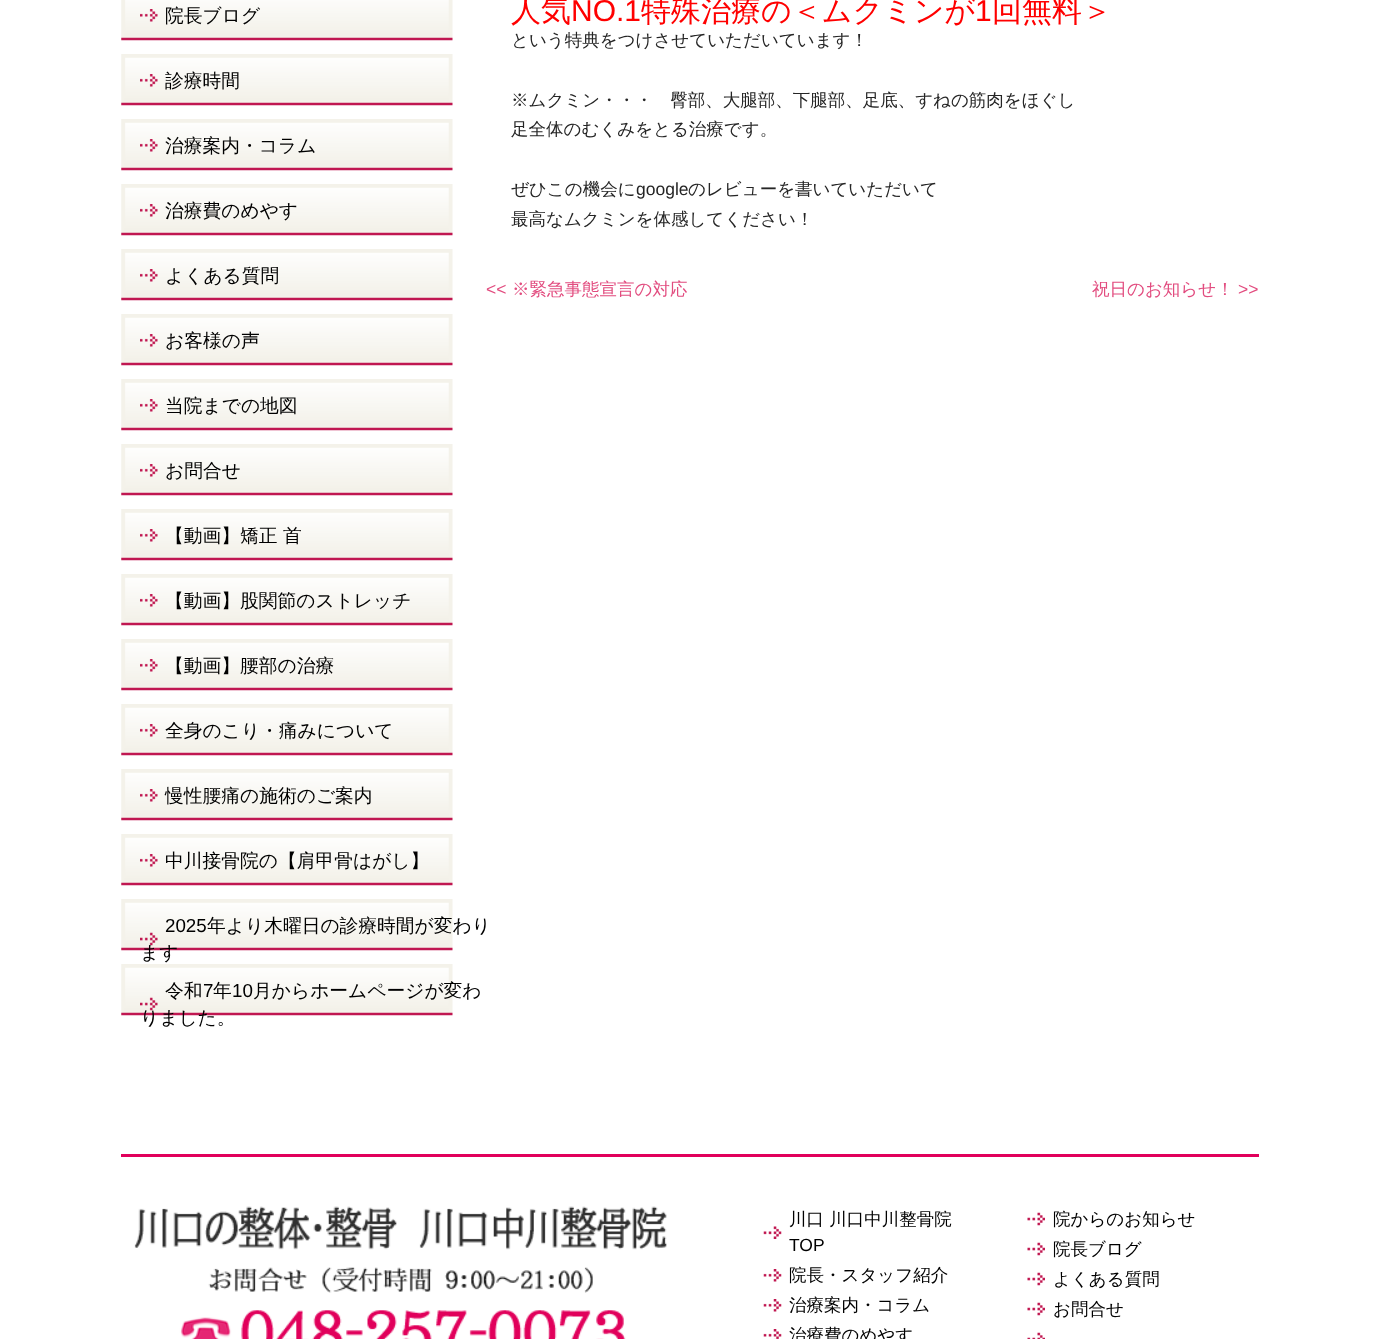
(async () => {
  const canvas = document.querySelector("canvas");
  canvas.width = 1379;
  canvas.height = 1339;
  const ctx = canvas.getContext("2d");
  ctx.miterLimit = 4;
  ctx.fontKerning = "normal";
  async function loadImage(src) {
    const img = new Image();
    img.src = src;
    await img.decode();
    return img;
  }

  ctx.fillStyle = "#ffffff";
  ctx.fillRect(0, 0, 1379, 1339);
  ctx.drawImage(await loadImage("img/1.png"), 121, 0, 332, 41);
  ctx.drawImage(await loadImage("img/2.png"), 140, 9, 18, 13);
  ctx.drawImage(await loadImage("img/3.png"), 121, 54, 332, 52);
  ctx.drawImage(await loadImage("img/2.png"), 140, 74, 18, 13);
  ctx.drawImage(await loadImage("img/3.png"), 121, 119, 332, 52);
  ctx.drawImage(await loadImage("img/2.png"), 140, 139, 18, 13);
  ctx.drawImage(await loadImage("img/3.png"), 121, 184, 332, 52);
  ctx.drawImage(await loadImage("img/2.png"), 140, 204, 18, 13);
  ctx.drawImage(await loadImage("img/3.png"), 121, 249, 332, 52);
  ctx.drawImage(await loadImage("img/2.png"), 140, 269, 18, 13);
  ctx.drawImage(await loadImage("img/3.png"), 121, 314, 332, 52);
  ctx.drawImage(await loadImage("img/2.png"), 140, 334, 18, 13);
  ctx.drawImage(await loadImage("img/3.png"), 121, 379, 332, 52);
  ctx.drawImage(await loadImage("img/2.png"), 140, 399, 18, 13);
  ctx.drawImage(await loadImage("img/3.png"), 121, 444, 332, 52);
  ctx.drawImage(await loadImage("img/2.png"), 140, 464, 18, 13);
  ctx.drawImage(await loadImage("img/3.png"), 121, 509, 332, 52);
  ctx.drawImage(await loadImage("img/2.png"), 140, 529, 18, 13);
  ctx.drawImage(await loadImage("img/3.png"), 121, 574, 332, 52);
  ctx.drawImage(await loadImage("img/2.png"), 140, 594, 18, 13);
  ctx.drawImage(await loadImage("img/3.png"), 121, 639, 332, 52);
  ctx.drawImage(await loadImage("img/2.png"), 140, 659, 18, 13);
  ctx.drawImage(await loadImage("img/3.png"), 121, 704, 332, 52);
  ctx.drawImage(await loadImage("img/2.png"), 140, 724, 18, 13);
  ctx.drawImage(await loadImage("img/3.png"), 121, 769, 332, 52);
  ctx.drawImage(await loadImage("img/2.png"), 140, 789, 18, 13);
  ctx.drawImage(await loadImage("img/3.png"), 121, 834, 332, 52);
  ctx.drawImage(await loadImage("img/2.png"), 140, 854, 18, 13);
  ctx.drawImage(await loadImage("img/3.png"), 121, 899, 332, 52);
  ctx.drawImage(await loadImage("img/4.png"), 140, 932, 18, 14);
  ctx.drawImage(await loadImage("img/3.png"), 121, 964, 332, 52);
  ctx.drawImage(await loadImage("img/4.png"), 140, 997, 18, 14);
  ctx.fillStyle = "#e1005b";
  ctx.fillRect(121, 1154, 1138, 3);
  ctx.drawImage(await loadImage("img/5.png"), 134, 1206, 533, 133);
  ctx.drawImage(await loadImage("img/6.png"), 763, 1226, 19, 13);
  ctx.drawImage(await loadImage("img/7.png"), 763, 1269, 19, 13);
  ctx.drawImage(await loadImage("img/7.png"), 763, 1299, 19, 13);
  ctx.drawImage(await loadImage("img/8.png"), 763, 1329, 19, 10);
  ctx.drawImage(await loadImage("img/9.png"), 1027, 1212, 18, 14);
  ctx.drawImage(await loadImage("img/9.png"), 1027, 1242, 18, 14);
  ctx.drawImage(await loadImage("img/9.png"), 1027, 1272, 18, 14);
  ctx.drawImage(await loadImage("img/9.png"), 1027, 1302, 18, 14);
  ctx.drawImage(await loadImage("img/10.png"), 1027, 1332, 18, 7);
  ctx.font = "500 18.75px WenQuanYi Zen Hei";
  ctx.fillStyle = "#000000";
  for (const [text, x, y] of [
    ["院長ブログ", 165, 22],
    ["診療時間", 165, 87],
    ["治療案内・コラム", 165, 152],
    ["治療費のめやす", 165, 217],
    ["よくある質問", 165, 282],
    ["お客様の声", 165, 347],
    ["当院までの地図", 165, 412],
    ["お問合せ", 165, 477],
    ["【動画】矯正 首", 165, 542],
    ["【動画】股関節のストレッチ", 165, 607],
    ["【動画】腰部の治療", 165, 672],
    ["全身のこり・痛みについて", 165, 737],
    ["慢性腰痛の施術のご案内", 165, 802],
    ["中川接骨院の【肩甲骨はがし】", 165, 867],
  ]) {
    ctx.fillText(text, x, y);
  }
  ctx.font = "18.75px Liberation Sans";
  ctx.fillText("2025", 165, 932);
  ctx.font = "500 18.75px WenQuanYi Zen Hei";
  for (const [text, x, y] of [
    ["年より木曜日の診療時間が変わり", 207, 932],
    ["ます", 140, 959],
    ["令和", 165, 997],
  ]) {
    ctx.fillText(text, x, y);
  }
  ctx.font = "18.75px Liberation Sans";
  ctx.fillText("7", 203, 997);
  ctx.font = "500 18.75px WenQuanYi Zen Hei";
  ctx.fillText("年", 213, 997);
  ctx.font = "18.75px Liberation Sans";
  ctx.fillText("10", 232, 997);
  ctx.font = "500 18.75px WenQuanYi Zen Hei";
  ctx.fillText("月からホームページが変わ", 253, 997);
  ctx.fillText("りました。", 140, 1024);
  ctx.font = "500 30px WenQuanYi Zen Hei";
  ctx.fillStyle = "#ff0000";
  ctx.fillText("人気", 511, 21);
  ctx.font = "30px Liberation Sans";
  ctx.fillText("NO.1", 571, 21);
  ctx.font = "500 30px WenQuanYi Zen Hei";
  ctx.fillText("特殊治療の＜ムクミンが", 641, 21);
  ctx.font = "30px Liberation Sans";
  ctx.fillText("1", 975, 21);
  ctx.font = "500 30px WenQuanYi Zen Hei";
  ctx.fillText("回無料＞", 992, 21);
  ctx.font = "500 17.5px WenQuanYi Zen Hei";
  ctx.fillStyle = "#252525";
  for (const [text, x, y] of [
    ["という特典をつけさせていただいています！", 511, 46],
    ["※ムクミン・・・　臀部、大腿部、下腿部、足底、すねの筋肉をほぐし", 511, 106],
    ["足全体のむくみをとる治療です。", 511, 135],
    ["ぜひこの機会に", 511, 195],
  ]) {
    ctx.fillText(text, x, y);
  }
  ctx.font = "17.5px Liberation Sans";
  ctx.fillText("google", 636, 195);
  ctx.font = "500 17.5px WenQuanYi Zen Hei";
  ctx.fillText("のレビューを書いていただいて", 688, 195);
  ctx.fillText("最高なムクミンを体感してください！", 511, 225);
  ctx.font = "17.5px Liberation Sans";
  ctx.fillStyle = "#e24c7f";
  ctx.fillText("<<", 486, 295);
  ctx.font = "500 17.5px WenQuanYi Zen Hei";
  ctx.fillText("※緊急事態宣言の対応", 512, 295);
  ctx.fillText("祝日のお知らせ！", 1092, 295);
  ctx.font = "17.5px Liberation Sans";
  ctx.fillText(">>", 1238, 295);
  ctx.font = "500 17.5px WenQuanYi Zen Hei";
  ctx.fillStyle = "#000000";
  ctx.fillText("川口 川口中川整骨院", 789, 1225);
  ctx.font = "17.5px Liberation Sans";
  ctx.fillText("TOP", 789, 1251);
  ctx.font = "500 17.5px WenQuanYi Zen Hei";
  for (const [text, x, y] of [
    ["院長・スタッフ紹介", 789, 1281],
    ["治療案内・コラム", 789, 1311],
    ["治療費のめやす", 789, 1341],
    ["院からのお知らせ", 1053, 1225],
    ["院長ブログ", 1053, 1255],
    ["よくある質問", 1053, 1285],
    ["お問合せ", 1053, 1315],
  ]) {
    ctx.fillText(text, x, y);
  }
})();
